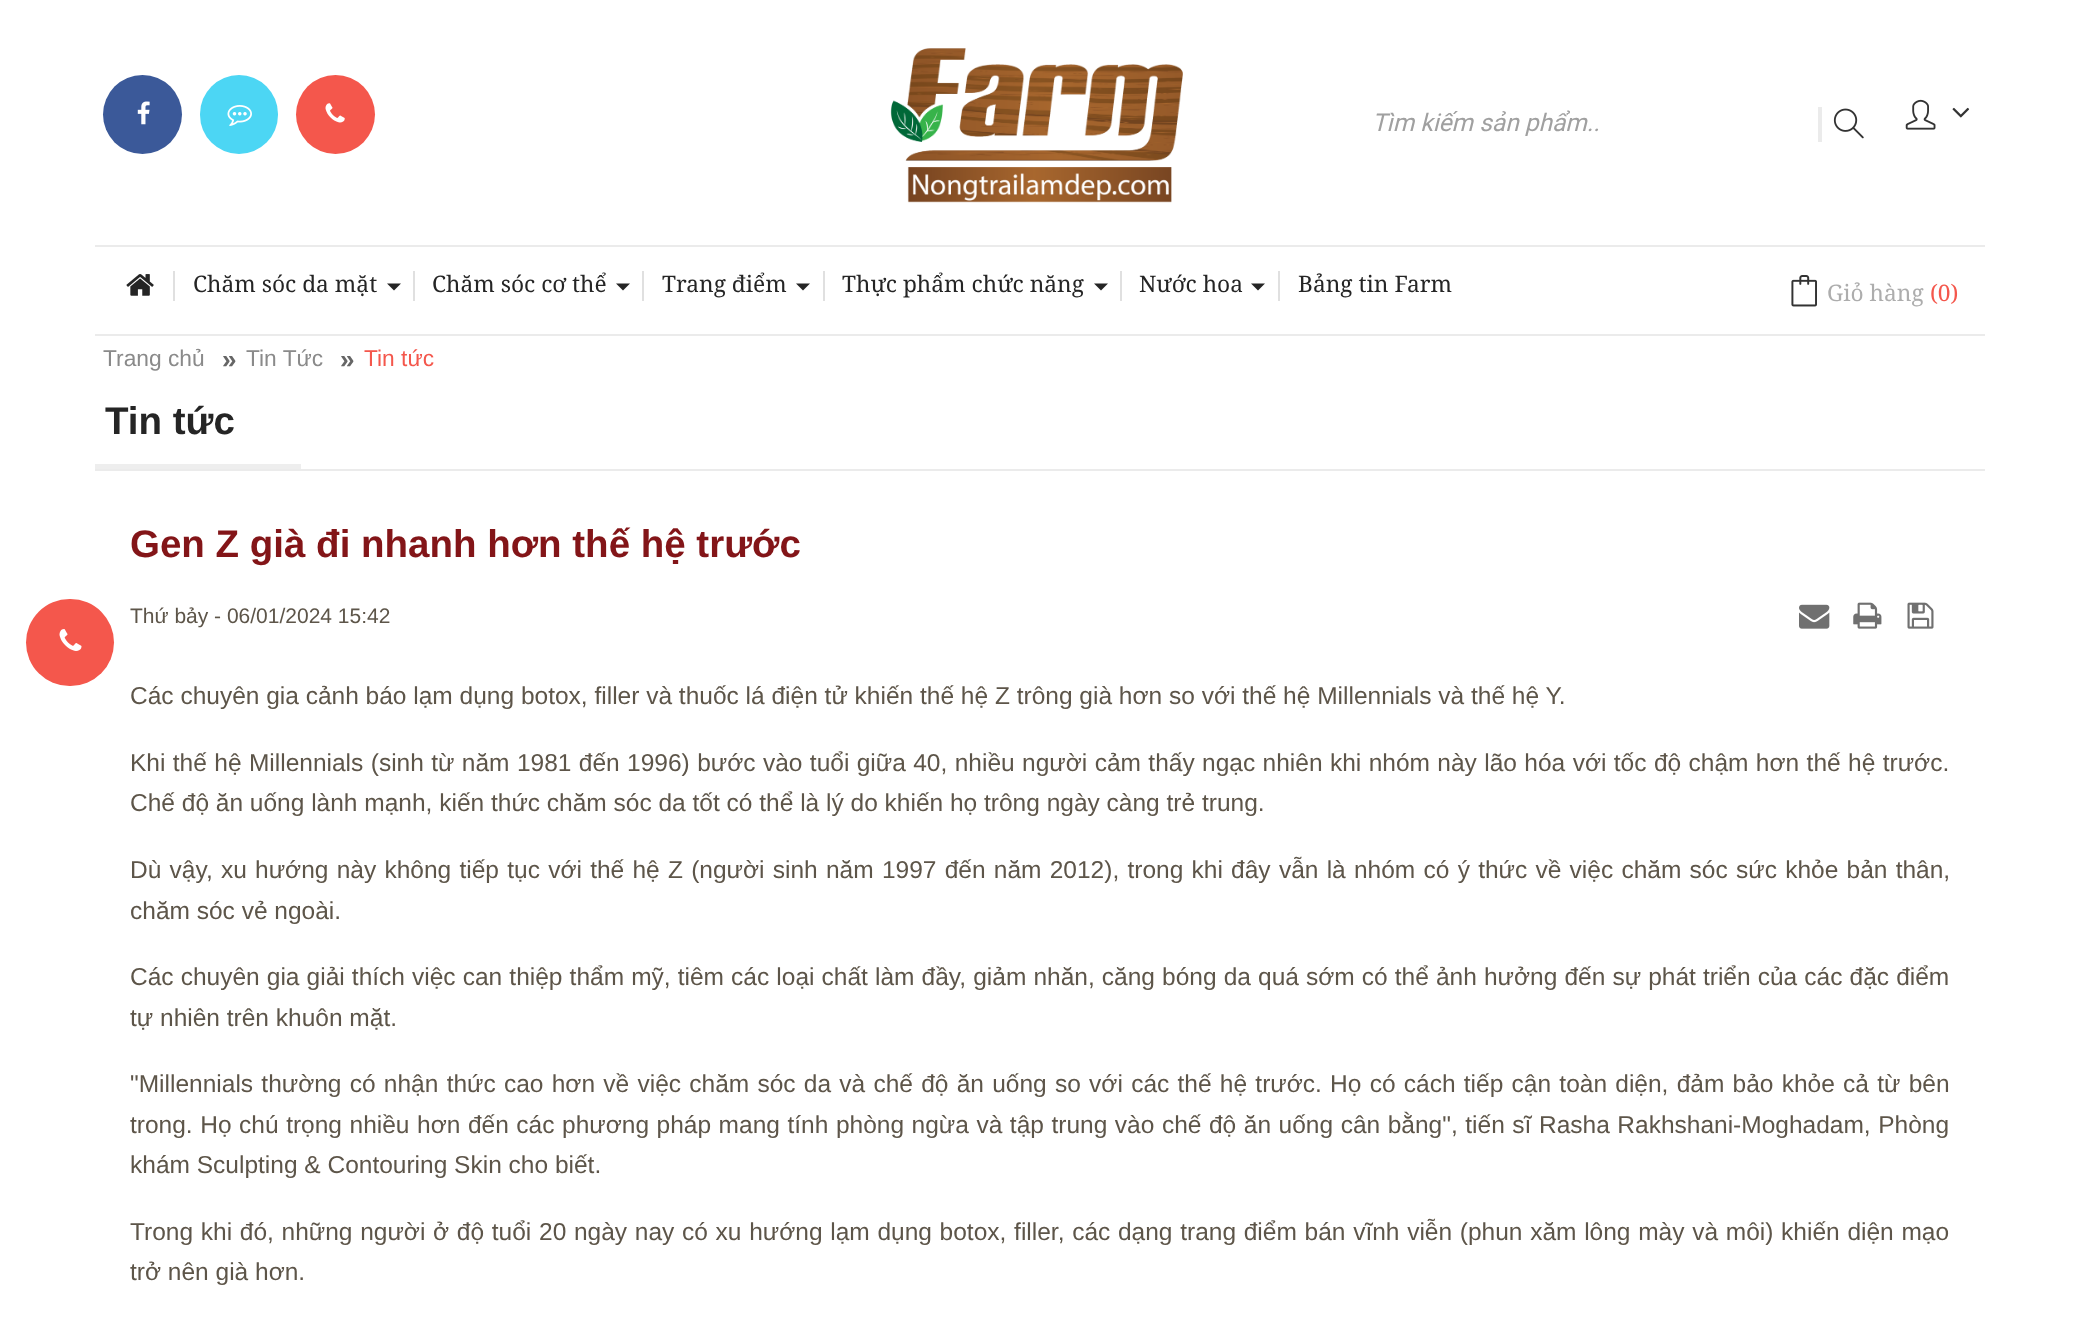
(async () => {
  const canvas = document.querySelector("canvas");
  canvas.width = 2079;
  canvas.height = 1318;
  const ctx = canvas.getContext("2d");
  ctx.miterLimit = 4;
  ctx.fontKerning = "normal";
  async function loadImage(src) {
    const img = new Image();
    img.src = src;
    await img.decode();
    return img;
  }
  let path;

  ctx.fillStyle = "#ffffff";
  ctx.fillRect(0, 0, 2079, 1318);
  ctx.fillStyle = "#f4574c";
  ctx.beginPath();
  ctx.roundRect(26, 599, 88, 87, 43.5);
  ctx.fill();
  ctx.drawImage(await loadImage("img/1.png"), 59, 629, 23, 22);
  ctx.fillStyle = "#ebebeb";
  ctx.fillRect(95, 245, 1890, 2);
  ctx.drawImage(await loadImage("img/2.png"), 126, 274, 28, 22);
  ctx.fillStyle = "#e0e0e0";
  ctx.fillRect(173, 271, 2, 30);
  ctx.fillStyle = "#252525";
  path = new Path2D("M387 283.5H401L394 290.5Z");
  ctx.fill(path);
  ctx.fillStyle = "#e0e0e0";
  ctx.fillRect(413, 271, 2, 30);
  ctx.fillStyle = "#252525";
  path = new Path2D("M616 283.5H630L623 290.5Z");
  ctx.fill(path);
  ctx.fillStyle = "#e0e0e0";
  ctx.fillRect(642, 271, 2, 30);
  ctx.fillStyle = "#252525";
  path = new Path2D("M796 283.5H810L803 290.5Z");
  ctx.fill(path);
  ctx.fillStyle = "#e0e0e0";
  ctx.fillRect(823, 271, 2, 30);
  ctx.fillStyle = "#252525";
  path = new Path2D("M1094 283.5H1108L1101 290.5Z");
  ctx.fill(path);
  ctx.fillStyle = "#e0e0e0";
  ctx.fillRect(1120, 271, 2, 30);
  ctx.fillStyle = "#252525";
  path = new Path2D("M1251 283.5H1265L1258 290.5Z");
  ctx.fill(path);
  ctx.fillStyle = "#e0e0e0";
  ctx.fillRect(1278, 271, 2, 30);
  ctx.fillStyle = "#3b5999";
  ctx.beginPath();
  ctx.arc(142.5, 114.5, 39.5, 0, Math.PI * 2);
  ctx.fill();
  ctx.drawImage(await loadImage("img/3.png"), 137, 101, 13, 24);
  ctx.fillStyle = "#4cd6f4";
  ctx.beginPath();
  ctx.roundRect(200, 75, 78, 79, 39);
  ctx.fill();
  ctx.drawImage(await loadImage("img/4.png"), 227, 105, 25, 21);
  ctx.fillStyle = "#f4574c";
  ctx.beginPath();
  ctx.arc(335.5, 114.5, 39.5, 0, Math.PI * 2);
  ctx.fill();
  ctx.drawImage(await loadImage("img/5.png"), 325, 103, 20, 20);
  ctx.drawImage(await loadImage("img/6.png"), 890, 48, 293, 155);
  ctx.fillStyle = "#ebebeb";
  ctx.fillRect(1818, 107, 4, 35);
  ctx.drawImage(await loadImage("img/7.png"), 1833, 108, 31, 31);
  ctx.drawImage(await loadImage("img/8.png"), 1905, 99, 31, 31);
  ctx.drawImage(await loadImage("img/9.png"), 1952, 107, 18, 11);
  ctx.drawImage(await loadImage("img/10.png"), 1791, 275, 26, 32);
  for (const [x, y, w, h, color] of [
    [95, 334, 1890, 2, "#ebebeb"],
    [95, 469, 1890, 2, "#ebebeb"],
    [95, 464, 206, 5, "#eeeeee"],
  ]) {
    ctx.fillStyle = color;
    ctx.fillRect(x, y, w, h);
  }
  ctx.drawImage(await loadImage("img/11.png"), 1799, 604, 31, 25);
  ctx.drawImage(await loadImage("img/12.png"), 1853, 602, 29, 27);
  ctx.drawImage(await loadImage("img/13.png"), 1907, 602, 27, 27);
  ctx.font = "22.75px Noto Serif";
  ctx.fillStyle = "#252525";
  for (const [text, x, y] of [
    ["Chăm sóc da mặt", 193, 292],
    ["Chăm sóc cơ thể", 432, 292],
    ["Trang điểm", 662, 292],
    ["Thực phẩm chức năng", 842, 292],
    ["Nước hoa", 1139, 292],
    ["Bảng tin Farm", 1298, 292],
  ]) {
    ctx.fillText(text, x, y);
  }
  ctx.font = "italic 24.5px Roboto";
  ctx.fillStyle = "#a0a0a0";
  ctx.fillText("Tìm kiếm sản phẩm..", 1372, 131);
  ctx.font = "22.75px Noto Serif";
  ctx.fillStyle = "#adadad";
  ctx.fillText("Giỏ hàng", 1827, 301);
  ctx.fillStyle = "#f4574c";
  ctx.fillText("(0)", 1930, 301);
  ctx.font = "22.75px Liberation Sans";
  ctx.fillStyle = "#8a8a8a";
  ctx.fillText("Trang chủ", 103, 366);
  ctx.font = "bold 26px Liberation Sans";
  ctx.fillStyle = "#666666";
  ctx.fillText("»", 222, 368);
  ctx.font = "22.75px Liberation Sans";
  ctx.fillStyle = "#8a8a8a";
  ctx.fillText("Tin Tức", 246, 366);
  ctx.font = "bold 26px Liberation Sans";
  ctx.fillStyle = "#666666";
  ctx.fillText("»", 340, 368);
  ctx.font = "22.75px Liberation Sans";
  ctx.fillStyle = "#f4574c";
  ctx.fillText("Tin tức", 364, 366);
  ctx.font = "bold 38.5px Liberation Sans";
  ctx.fillStyle = "#252525";
  ctx.fillText("Tin tức", 105, 434);
  ctx.fillStyle = "#831518";
  ctx.fillText("Gen Z già đi nhanh hơn thế hệ trước", 130, 557);
  ctx.font = "21px Liberation Sans";
  ctx.fillStyle = "#5d5549";
  ctx.fillText("Thứ bảy - 06/01/2024 15:42", 130, 623);
  ctx.font = "24.5px Liberation Sans";
  ctx.fillText("Các chuyên gia cảnh báo lạm dụng botox, filler và thuốc lá điện tử khiến thế hệ Z trông già hơn so với thế hệ Millennials và thế hệ Y.", 130, 704);
  ctx.wordSpacing = "0.6px";
  ctx.fillText("Khi thế hệ Millennials (sinh từ năm 1981 đến 1996) bước vào tuổi giữa 40, nhiều người cảm thấy ngạc nhiên khi nhóm này lão hóa với tốc độ chậm hơn thế hệ trước.", 130, 771);
  ctx.wordSpacing = "0px";
  ctx.fillText("Chế độ ăn uống lành mạnh, kiến thức chăm sóc da tốt có thể là lý do khiến họ trông ngày càng trẻ trung.", 130, 811);
  ctx.wordSpacing = "1.45px";
  ctx.fillText("Dù vậy, xu hướng này không tiếp tục với thế hệ Z (người sinh năm 1997 đến năm 2012), trong khi đây vẫn là nhóm có ý thức về việc chăm sóc sức khỏe bản thân,", 130, 878);
  ctx.wordSpacing = "0px";
  ctx.fillText("chăm sóc vẻ ngoài.", 130, 919);
  ctx.wordSpacing = "0.3px";
  ctx.fillText("Các chuyên gia giải thích việc can thiệp thẩm mỹ, tiêm các loại chất làm đầy, giảm nhăn, căng bóng da quá sớm có thể ảnh hưởng đến sự phát triển của các đặc điểm", 130, 985);
  ctx.wordSpacing = "0px";
  ctx.fillText("tự nhiên trên khuôn mặt.", 130, 1026);
  ctx.wordSpacing = "1.45px";
  ctx.fillText("\"Millennials thường có nhận thức cao hơn về việc chăm sóc da và chế độ ăn uống so với các thế hệ trước. Họ có cách tiếp cận toàn diện, đảm bảo khỏe cả từ bên", 130, 1092);
  ctx.wordSpacing = "0.75px";
  ctx.fillText("trong. Họ chú trọng nhiều hơn đến các phương pháp mang tính phòng ngừa và tập trung vào chế độ ăn uống cân bằng\", tiến sĩ Rasha Rakhshani-Moghadam, Phòng", 130, 1133);
  ctx.wordSpacing = "0px";
  ctx.fillText("khám Sculpting & Contouring Skin cho biết.", 130, 1173);
  ctx.wordSpacing = "0.9px";
  ctx.fillText("Trong khi đó, những người ở độ tuổi 20 ngày nay có xu hướng lạm dụng botox, filler, các dạng trang điểm bán vĩnh viễn (phun xăm lông mày và môi) khiến diện mạo", 130, 1240);
  ctx.wordSpacing = "0px";
  ctx.fillText("trở nên già hơn.", 130, 1280);
})();
